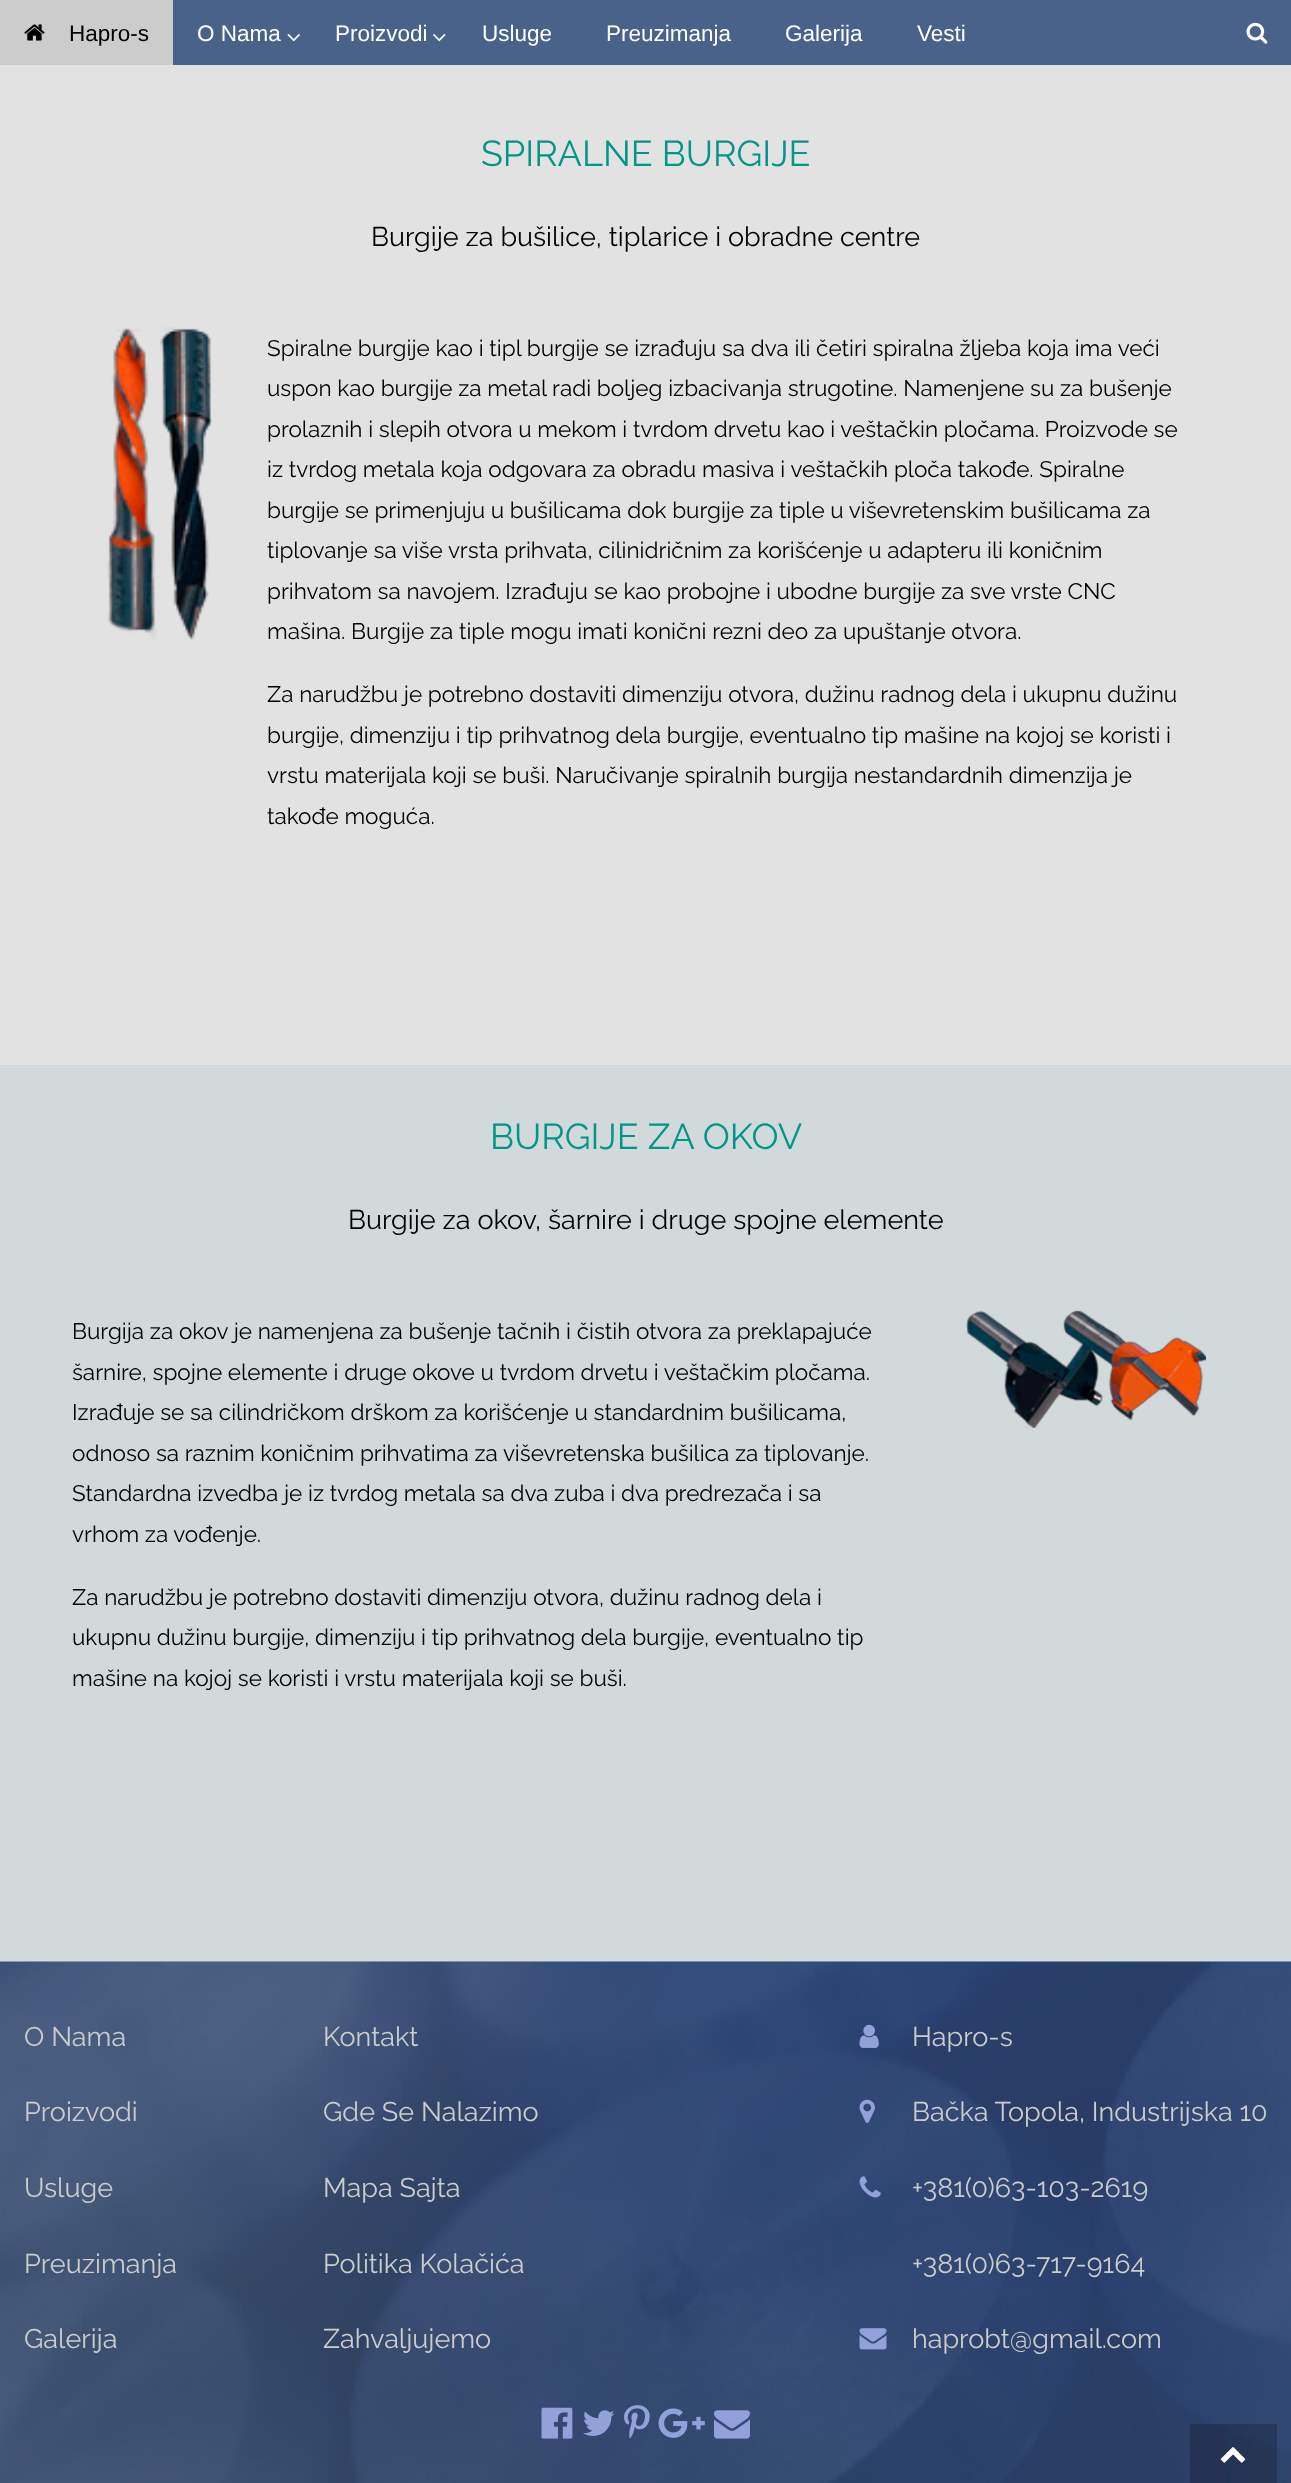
(async () => {
  const canvas = document.querySelector("canvas");
  canvas.width = 1291;
  canvas.height = 2483;
  const ctx = canvas.getContext("2d");
  ctx.miterLimit = 4;
  ctx.fontKerning = "normal";
  async function loadImage(src) {
    const img = new Image();
    img.src = src;
    await img.decode();
    return img;
  }

  ctx.fillStyle = "#e3e2e2";
  ctx.fillRect(0, 0, 1291, 2483);
  ctx.fillStyle = "#496289";
  ctx.fillRect(173, 0, 1118, 65);
  ctx.fillStyle = "#cccccc";
  ctx.fillRect(0, 0, 173, 65);
  ctx.drawImage(await loadImage("img/1.png"), 24, 24, 21, 17);
  ctx.drawImage(await loadImage("img/2.png"), 1246, 22, 22, 22);
  ctx.drawImage(await loadImage("img/3.png"), 287, 34, 13, 8);
  ctx.drawImage(await loadImage("img/4.png"), 433, 34, 13, 8);
  ctx.fillStyle = "#d1d9db";
  ctx.fillRect(0, 1065, 1291, 897);
  ctx.drawImage(await loadImage("img/8.png"), 0, 1961, 1291, 522);
  ctx.fillStyle = "rgba(0, 0, 0, 0.2)";
  ctx.fillRect(1190, 2424, 87, 59);
  ctx.drawImage(await loadImage("img/5.png"), 1220, 2447, 26, 16);
  ctx.drawImage(await loadImage("img/6.png"), 107, 327, 106, 313);
  ctx.drawImage(await loadImage("img/7.png"), 966, 1310, 241, 118);
  ctx.drawImage(await loadImage("img/9.png"), 859, 2024, 20, 24);
  ctx.drawImage(await loadImage("img/10.png"), 859, 2099, 16, 24);
  ctx.drawImage(await loadImage("img/11.png"), 859, 2176, 22, 22);
  ctx.drawImage(await loadImage("img/12.png"), 859, 2328, 28, 22);
  ctx.drawImage(await loadImage("img/13.png"), 541, 2407, 32, 32);
  ctx.drawImage(await loadImage("img/14.png"), 583, 2410, 32, 26);
  ctx.drawImage(await loadImage("img/15.png"), 624, 2405, 26, 34);
  ctx.drawImage(await loadImage("img/16.png"), 658, 2408, 47, 30);
  ctx.drawImage(await loadImage("img/17.png"), 714, 2410, 36, 29);
  ctx.font = "22.5px Liberation Sans";
  ctx.fillStyle = "#000000";
  ctx.fillText("Hapro-s", 69, 41);
  ctx.fillStyle = "#ffffff";
  for (const [text, x, y] of [
    ["O Nama", 197, 41],
    ["Proizvodi", 335, 41],
    ["Usluge", 482, 41],
    ["Preuzimanja", 606, 41],
    ["Galerija", 785, 41],
    ["Vesti", 917, 41],
  ]) {
    ctx.fillText(text, x, y);
  }
  ctx.font = "100 36px Raleway";
  ctx.fillStyle = "#009688";
  ctx.fillText("SPIRALNE BURGIJE", 481, 166);
  ctx.font = "100 27px Raleway";
  ctx.fillStyle = "#000000";
  ctx.fillText("Burgije za bušilice, tiplarice i obradne centre", 371, 246);
  ctx.font = "100 22.5px Raleway";
  for (const [text, x, y] of [
    ["Spiralne burgije kao i tipl burgije se izrađuju sa dva ili četiri spiralna žljeba koja ima veći", 267, 356],
    ["uspon kao burgije za metal radi boljeg izbacivanja strugotine. Namenjene su za bušenje", 267, 396],
    ["prolaznih i slepih otvora u mekom i tvrdom drvetu kao i veštačkin pločama. Proizvode se", 267, 437],
    ["iz tvrdog metala koja odgovara za obradu masiva i veštačkih ploča takođe. Spiralne", 267, 477],
    ["burgije se primenjuju u bušilicama dok burgije za tiple u viševretenskim bušilicama za", 267, 518],
    ["tiplovanje sa više vrsta prihvata, cilinidričnim za korišćenje u adapteru ili koničnim", 267, 558],
    ["prihvatom sa navojem. Izrađuju se kao probojne i ubodne burgije za sve vrste CNC", 267, 599],
    ["mašina. Burgije za tiple mogu imati konični rezni deo za upuštanje otvora.", 267, 639],
    ["Za narudžbu je potrebno dostaviti dimenziju otvora, dužinu radnog dela i ukupnu dužinu", 267, 702],
    ["burgije, dimenziju i tip prihvatnog dela burgije, eventualno tip mašine na kojoj se koristi i", 267, 743],
    ["vrstu materijala koji se buši. Naručivanje spiralnih burgija nestandardnih dimenzija je", 267, 783],
    ["takođe moguća.", 267, 824],
  ]) {
    ctx.fillText(text, x, y);
  }
  ctx.font = "100 36px Raleway";
  ctx.fillStyle = "#009688";
  ctx.fillText("BURGIJE ZA OKOV", 490, 1149);
  ctx.font = "100 27px Raleway";
  ctx.fillStyle = "#000000";
  ctx.fillText("Burgije za okov, šarnire i druge spojne elemente", 348, 1229);
  ctx.font = "100 22.5px Raleway";
  for (const [text, x, y] of [
    ["Burgija za okov je namenjena za bušenje tačnih i čistih otvora za preklapajuće", 72, 1339],
    ["šarnire, spojne elemente i druge okove u tvrdom drvetu i veštačkim pločama.", 72, 1380],
    ["Izrađuje se sa cilindričkom drškom za korišćenje u standardnim bušilicama,", 72, 1420],
    ["odnoso sa raznim koničnim prihvatima za viševretenska bušilica za tiplovanje.", 72, 1461],
    ["Standardna izvedba je iz tvrdog metala sa dva zuba i dva predrezača i sa", 72, 1501],
    ["vrhom za vođenje.", 72, 1542],
    ["Za narudžbu je potrebno dostaviti dimenziju otvora, dužinu radnog dela i", 72, 1605],
    ["ukupnu dužinu burgije, dimenziju i tip prihvatnog dela burgije, eventualno tip", 72, 1645],
    ["mašine na kojoj se koristi i vrstu materijala koji se buši.", 72, 1686],
  ]) {
    ctx.fillText(text, x, y);
  }
  ctx.font = "100 27px Raleway";
  ctx.fillStyle = "#cccccc";
  for (const [text, x, y] of [
    ["O Nama", 24, 2046],
    ["Proizvodi", 24, 2121],
    ["Usluge", 24, 2197],
    ["Preuzimanja", 24, 2273],
    ["Galerija", 24, 2348],
    ["Kontakt", 323, 2046],
    ["Gde Se Nalazimo", 323, 2121],
    ["Mapa Sajta", 323, 2197],
    ["Politika Kolačića", 323, 2273],
    ["Zahvaljujemo", 323, 2348],
    ["Hapro-s", 912, 2046],
    ["Bačka Topola, Industrijska 10", 912, 2121],
    ["+381(0)63-103-2619", 912, 2197],
    ["+381(0)63-717-9164", 912, 2273],
    ["haprobt@gmail.com", 912, 2348],
  ]) {
    ctx.fillText(text, x, y);
  }
})();
